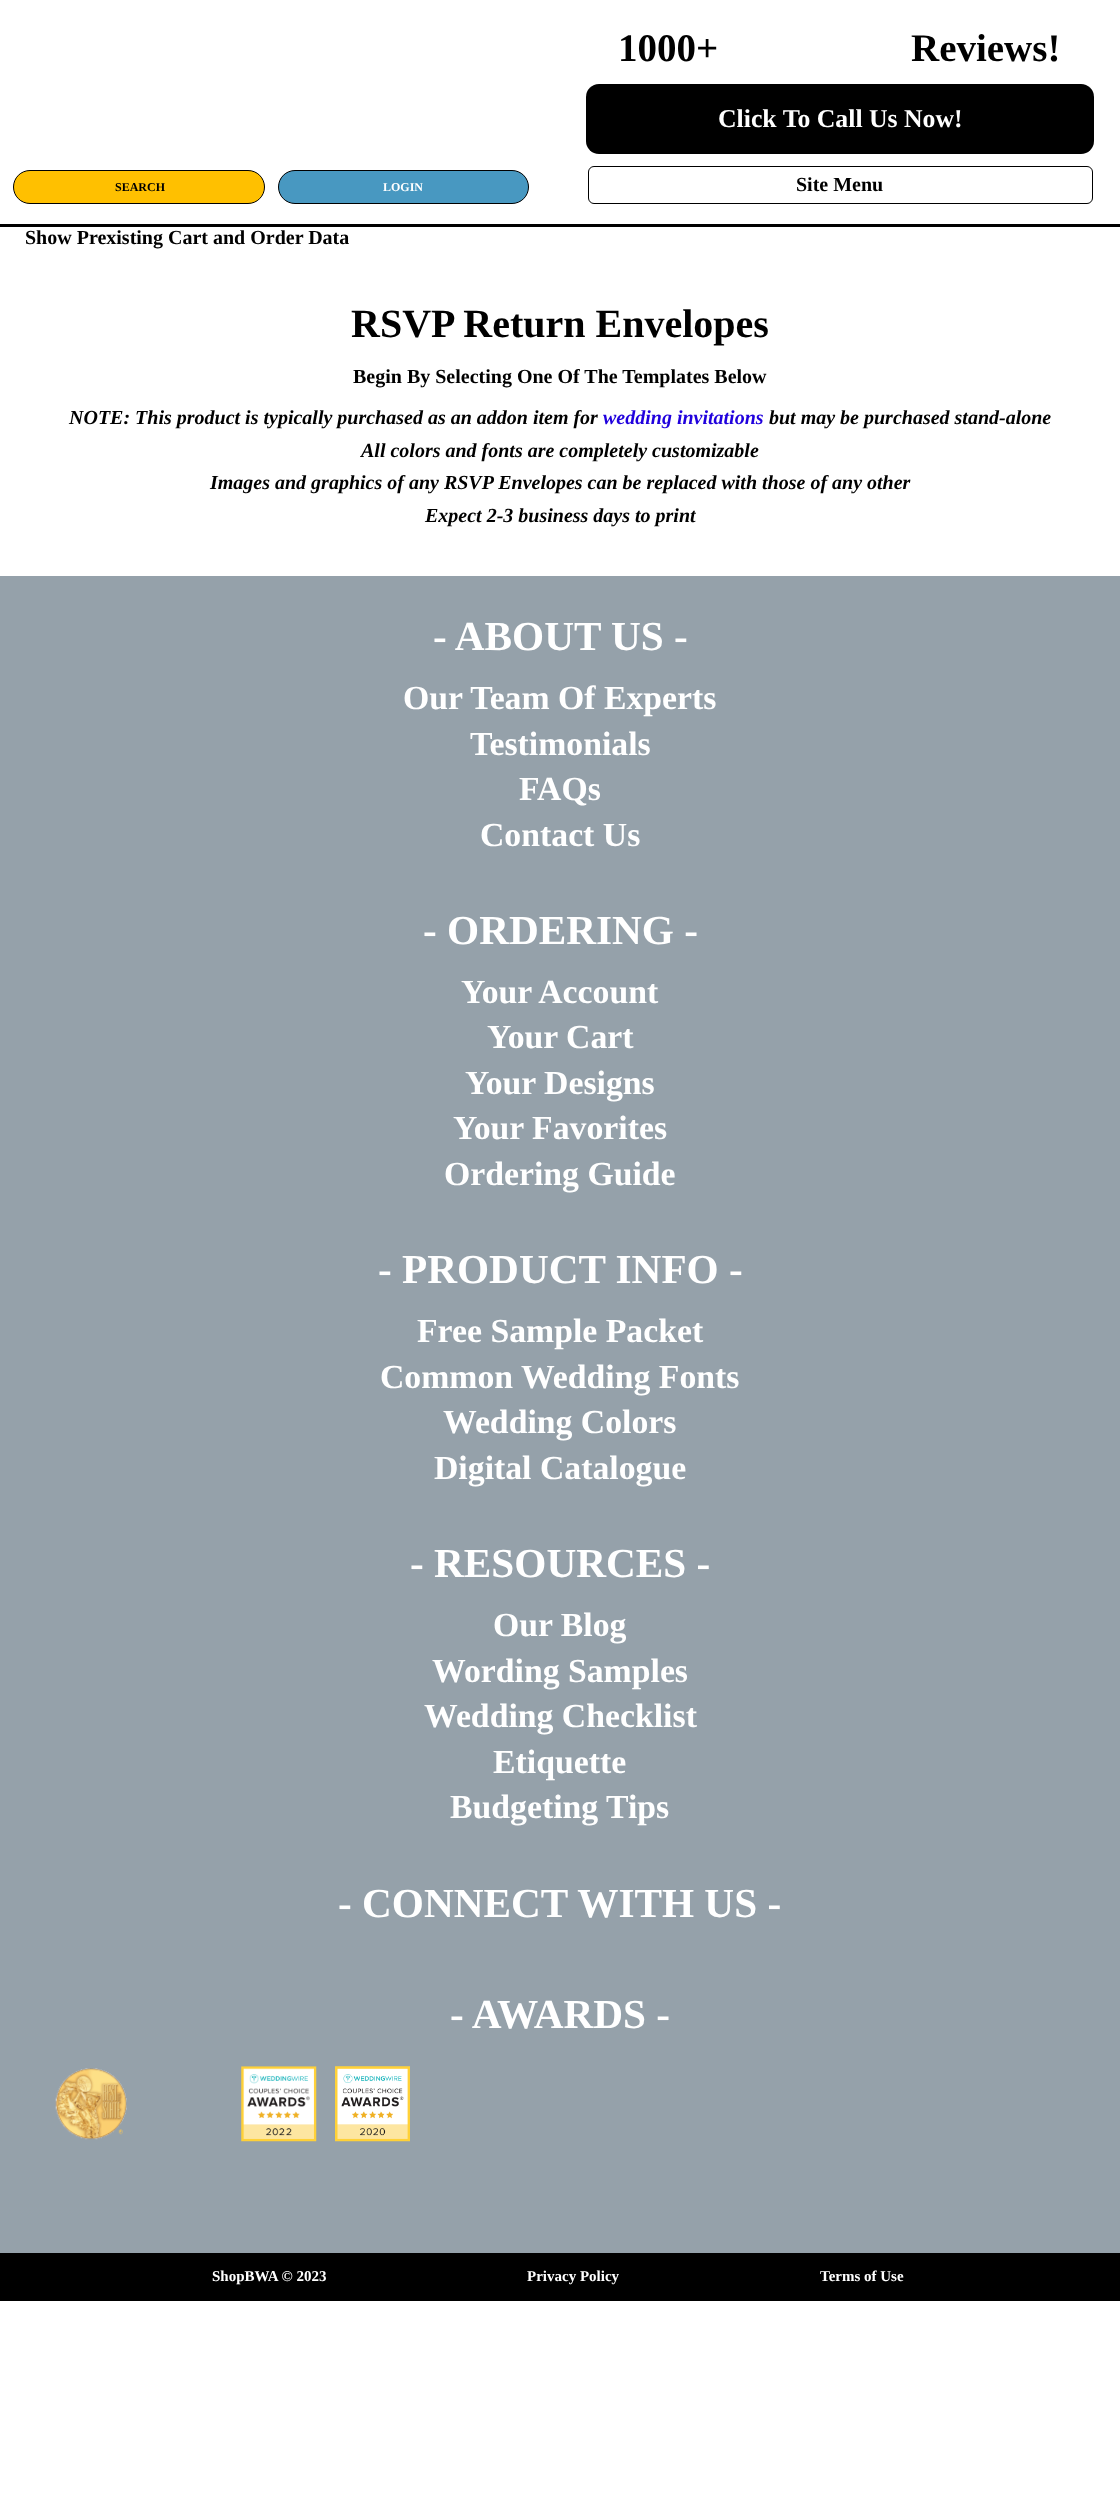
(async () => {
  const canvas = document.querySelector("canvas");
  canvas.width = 1120;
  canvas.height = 2507;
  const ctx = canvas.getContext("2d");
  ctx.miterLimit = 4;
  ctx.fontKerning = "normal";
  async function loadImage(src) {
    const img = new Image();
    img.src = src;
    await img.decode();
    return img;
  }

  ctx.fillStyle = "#ffffff";
  ctx.fillRect(0, 0, 1120, 2507);
  ctx.fillStyle = "#000000";
  ctx.fillRect(0, 224, 1120, 3);
  ctx.fillStyle = "#ffc000";
  ctx.beginPath();
  ctx.roundRect(13.5, 170.5, 251, 33, 16.5);
  ctx.fill();
  ctx.strokeStyle = "#000000";
  ctx.stroke();
  ctx.fillStyle = "#4898c1";
  ctx.beginPath();
  ctx.roundRect(278.5, 170.5, 250, 33, 16.5);
  ctx.fill();
  ctx.stroke();
  ctx.fillStyle = "#000000";
  ctx.beginPath();
  ctx.roundRect(586, 84, 508, 70, 13);
  ctx.fill();
  ctx.beginPath();
  ctx.roundRect(588.5, 166.5, 504, 37, 5.5);
  ctx.stroke();
  ctx.fillStyle = "#95a1aa";
  ctx.fillRect(0, 576, 1120, 1677);
  ctx.drawImage(await loadImage("img/1.png"), 55, 2068, 72, 72);
  ctx.drawImage(await loadImage("img/2.png"), 241, 2066, 76, 76);
  ctx.drawImage(await loadImage("img/3.png"), 335, 2066, 75, 76);
  ctx.fillStyle = "#000000";
  ctx.fillRect(0, 2253, 1120, 48);
  ctx.font = "bold 12px Liberation Serif";
  ctx.fillText("SEARCH", 115, 191);
  ctx.fillStyle = "#ffffff";
  ctx.fillText("LOGIN", 383, 191);
  ctx.font = "bold 39px Liberation Serif";
  ctx.fillStyle = "#000000";
  ctx.fillText("1000+", 618, 61);
  ctx.fillText("Reviews!", 911, 61);
  ctx.font = "bold 25.75px Liberation Serif";
  ctx.fillStyle = "#ffffff";
  ctx.fillText("Click To Call Us Now!", 718, 127);
  ctx.font = "bold 20px Liberation Serif";
  ctx.fillStyle = "#000000";
  ctx.fillText("Site Menu", 796, 191);
  ctx.fillText("Show Prexisting Cart and Order Data", 25, 244);
  ctx.font = "bold 40px Liberation Serif";
  ctx.fillText("RSVP Return Envelopes", 351, 337);
  ctx.font = "bold 20px Liberation Serif";
  ctx.fillText("Begin By Selecting One Of The Templates Below", 353, 383);
  ctx.font = "italic bold 20px Liberation Serif";
  ctx.fillText("NOTE: This product is typically purchased as an addon item for", 69, 424);
  ctx.fillStyle = "#2001dd";
  ctx.fillText("wedding invitations", 603, 424);
  ctx.fillStyle = "#000000";
  for (const [text, x, y] of [
    ["but may be purchased stand-alone", 769, 424],
    ["All colors and fonts are completely customizable", 361, 457],
    ["Images and graphics of any RSVP Envelopes can be replaced with those of any other", 210, 489],
    ["Expect 2-3 business days to print", 425, 522],
  ]) {
    ctx.fillText(text, x, y);
  }
  ctx.font = "bold 41.25px Liberation Serif";
  ctx.fillStyle = "#ffffff";
  ctx.fillText("- ABOUT US -", 433, 650);
  ctx.font = "bold 33.75px Liberation Serif";
  for (const [text, x, y] of [
    ["Our Team Of Experts", 403, 709],
    ["Testimonials", 470, 755],
    ["FAQs", 519, 800],
    ["Contact Us", 480, 846],
  ]) {
    ctx.fillText(text, x, y);
  }
  ctx.font = "bold 41.25px Liberation Serif";
  ctx.fillText("- ORDERING -", 423, 944);
  ctx.font = "bold 33.75px Liberation Serif";
  for (const [text, x, y] of [
    ["Your Account", 461, 1003],
    ["Your Cart", 487, 1048],
    ["Your Designs", 465, 1094],
    ["Your Favorites", 453, 1139],
    ["Ordering Guide", 444, 1185],
  ]) {
    ctx.fillText(text, x, y);
  }
  ctx.font = "bold 41.25px Liberation Serif";
  ctx.fillText("- PRODUCT INFO -", 378, 1283);
  ctx.font = "bold 33.75px Liberation Serif";
  for (const [text, x, y] of [
    ["Free Sample Packet", 417, 1342],
    ["Common Wedding Fonts", 380, 1388],
    ["Wedding Colors", 443, 1433],
    ["Digital Catalogue", 434, 1479],
  ]) {
    ctx.fillText(text, x, y);
  }
  ctx.font = "bold 41.25px Liberation Serif";
  ctx.fillText("- RESOURCES -", 410, 1577);
  ctx.font = "bold 33.75px Liberation Serif";
  for (const [text, x, y] of [
    ["Our Blog", 493, 1636],
    ["Wording Samples", 432, 1682],
    ["Wedding Checklist", 424, 1727],
    ["Etiquette", 493, 1773],
    ["Budgeting Tips", 450, 1818],
  ]) {
    ctx.fillText(text, x, y);
  }
  ctx.font = "bold 41.25px Liberation Serif";
  ctx.fillText("- CONNECT WITH US -", 338, 1917);
  ctx.fillText("- AWARDS -", 450, 2028);
  ctx.font = "bold 15px Liberation Serif";
  for (const [text, x, y] of [
    ["ShopBWA © 2023", 212, 2281],
    ["Privacy Policy", 527, 2281],
    ["Terms of Use", 820, 2281],
  ]) {
    ctx.fillText(text, x, y);
  }
})();
